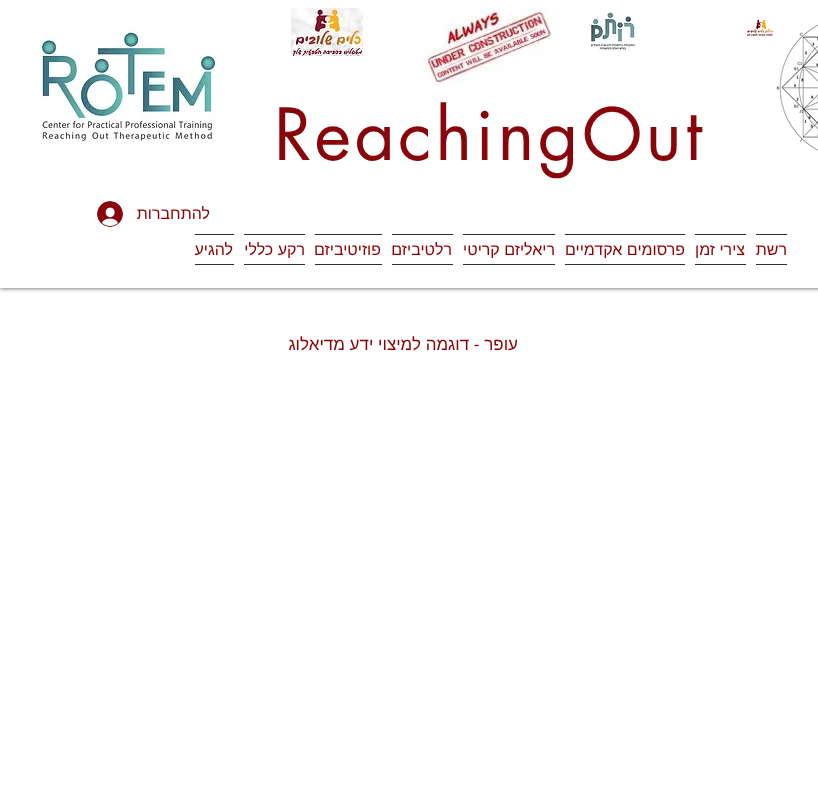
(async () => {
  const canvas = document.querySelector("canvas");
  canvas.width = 818;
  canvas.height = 785;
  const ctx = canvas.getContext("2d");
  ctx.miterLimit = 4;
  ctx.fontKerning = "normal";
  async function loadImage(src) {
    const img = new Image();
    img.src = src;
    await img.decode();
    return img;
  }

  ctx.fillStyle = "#ffffff";
  ctx.fillRect(0, 0, 818, 785);
  ctx.save();
  ctx.beginPath();
  ctx.rect(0, 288, 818, 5);
  ctx.clip();
  ctx.fillStyle = "rgba(0, 0, 0, 0.7)";
  ctx.filter = "blur(2.5px)";
  ctx.beginPath();
  ctx.rect(0, 0, 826, 288);
  ctx.fill();
  ctx.filter = "none";
  ctx.restore();
  ctx.drawImage(await loadImage("img/1.png"), 746, 20, 72, 131);
  ctx.drawImage(await loadImage("img/2.png"), 591, 11, 45, 41);
  ctx.drawImage(await loadImage("img/3.png"), 420, 8, 132, 76);
  ctx.drawImage(await loadImage("img/4.png"), 291, 8, 72, 48);
  ctx.drawImage(await loadImage("img/5.png"), 37, 26, 183, 116);
  ctx.drawImage(await loadImage("img/6.png"), 97, 201, 26, 26);
  for (const [x, y, w, h, color] of [
    [756, 234, 31, 1, "#2d2d2f"],
    [756, 264, 31, 1, "#2d2d2f"],
    [695, 234, 51, 1, "#2d2d2f"],
    [695, 264, 51, 1, "#2d2d2f"],
    [565, 234, 120, 1, "#2d2d2f"],
    [565, 264, 120, 1, "#2d2d2f"],
    [463, 234, 92, 1, "#2d2d2f"],
    [463, 264, 92, 1, "#2d2d2f"],
    [392, 234, 61, 1, "#2d2d2f"],
    [392, 264, 61, 1, "#2d2d2f"],
    [315, 234, 67, 1, "#2d2d2f"],
    [315, 264, 67, 1, "#2d2d2f"],
    [244, 234, 61, 1, "#2d2d2f"],
    [244, 264, 61, 1, "#2d2d2f"],
    [195, 234, 39, 1, "#2d2d2f"],
    [195, 264, 39, 1, "#2d2d2f"],
  ]) {
    ctx.fillStyle = color;
    ctx.fillRect(x, y, w, h);
  }
  ctx.letterSpacing = "3.5px";
  ctx.font = "70px futura";
  ctx.fillStyle = "#88050a";
  ctx.fillText("ReachingOut", 274, 160);
  ctx.letterSpacing = "0px";
  ctx.direction = "rtl";
  ctx.font = "16px Liberation Sans";
  ctx.fillStyle = "#8b0000";
  for (const [text, x, y] of [
    ["להתחברות", 210, 219],
    ["רשת", 787, 255],
    ["צירי זמן", 745, 255],
    ["פרסומים אקדמיים", 685, 255],
    ["ריאליזם קריטי", 555, 255],
    ["רלטיביזם", 452, 255],
    ["פוזיטיביזם", 381, 255],
    ["רקע כללי", 305, 255],
    ["להגיע", 233, 255],
  ]) {
    ctx.fillText(text, x, y);
  }
  ctx.font = "17px Liberation Sans";
  ctx.fillText("עופר - דוגמה למיצוי ידע מדיאלוג", 518, 350);
})();
